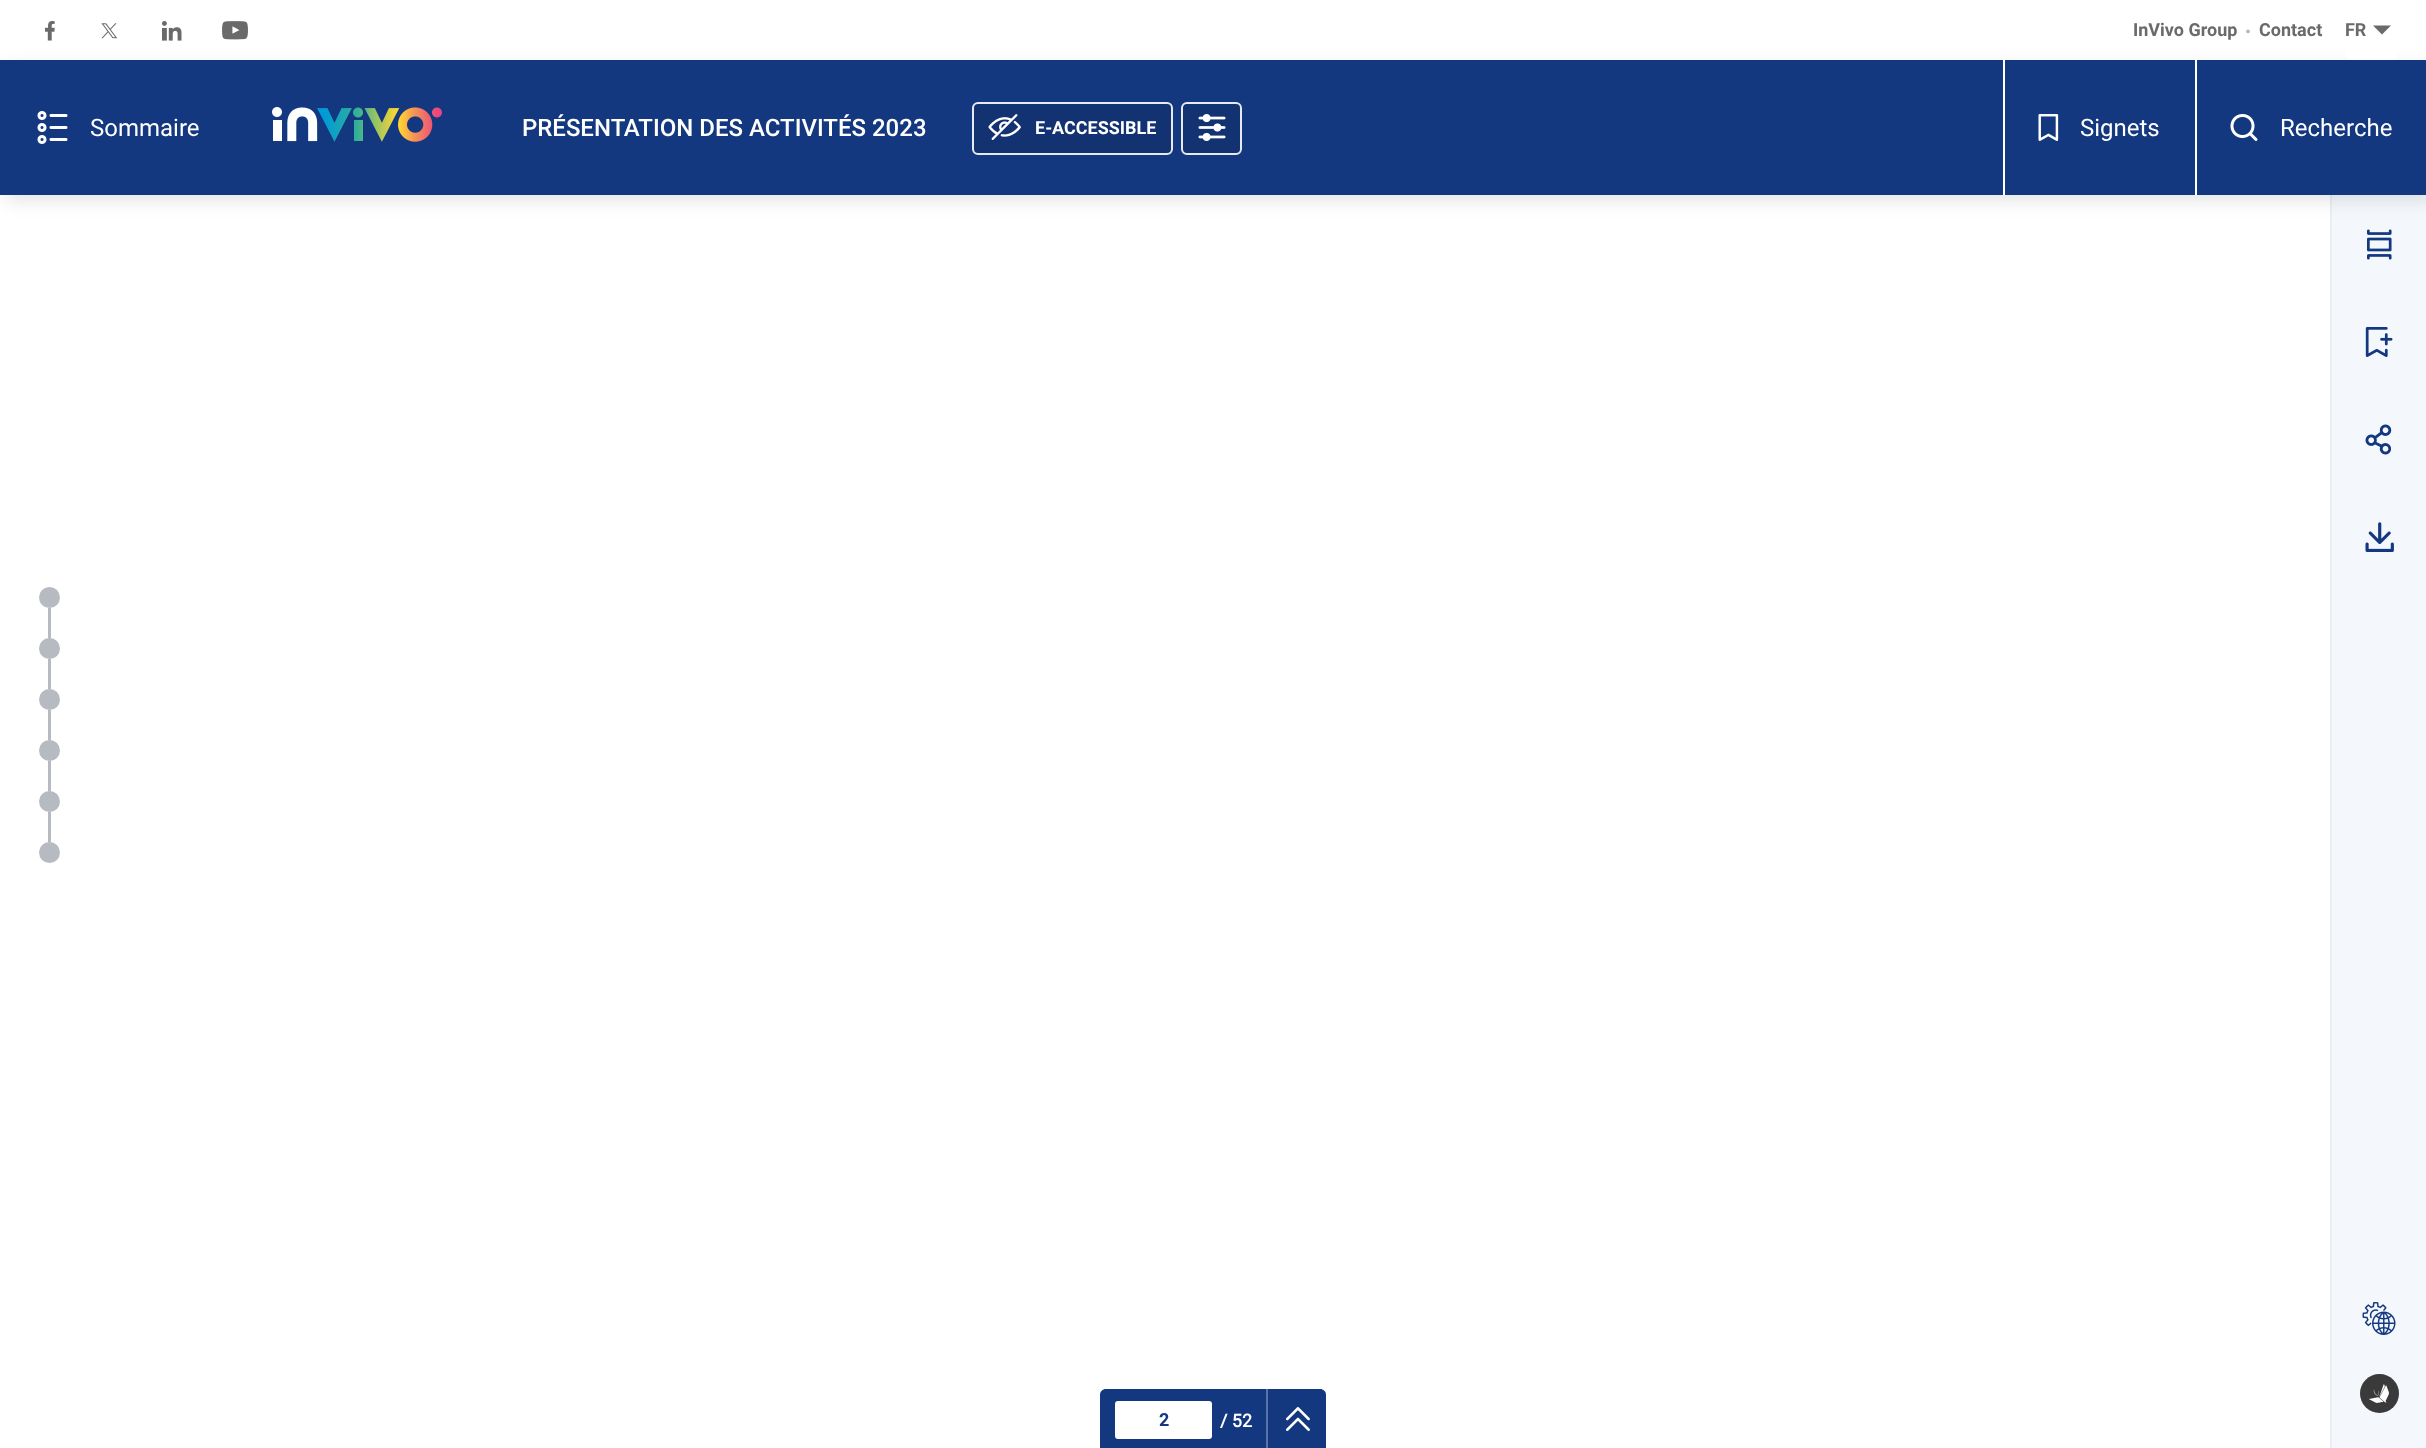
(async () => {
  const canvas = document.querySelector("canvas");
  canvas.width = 2426;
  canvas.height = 1448;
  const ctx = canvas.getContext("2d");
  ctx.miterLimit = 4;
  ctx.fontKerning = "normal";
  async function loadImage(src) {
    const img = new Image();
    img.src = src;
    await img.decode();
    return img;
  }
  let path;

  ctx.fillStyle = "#ffffff";
  ctx.fillRect(0, 0, 2426, 1448);
  ctx.drawImage(await loadImage("img/1.png"), 45, 21, 10, 20);
  ctx.drawImage(await loadImage("img/2.png"), 101, 23, 17, 16);
  ctx.drawImage(await loadImage("img/3.png"), 162, 21, 20, 20);
  ctx.drawImage(await loadImage("img/4.png"), 222, 21, 26, 19);
  ctx.fillStyle = "#f4f7fc";
  ctx.fillRect(2332, 195, 94, 1253);
  ctx.fillStyle = "#ecedf2";
  ctx.fillRect(2330, 195, 2, 1253);
  ctx.fillStyle = "rgba(0, 0, 0, 0.1)";
  ctx.filter = "blur(9px)";
  ctx.beginPath();
  ctx.rect(6, 66, 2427, 135);
  ctx.fill();
  ctx.filter = "none";
  ctx.fillStyle = "#ffffff";
  ctx.beginPath();
  ctx.roundRect(2345, 0, 52, 60, 6);
  ctx.fill();
  ctx.fillStyle = "#6a6a6a";
  path = new Path2D("M2373 25.5H2391L2382 34.5Z");
  ctx.fill(path);
  ctx.fillStyle = "#14387f";
  ctx.fillRect(0, 60, 2426, 135);
  ctx.drawImage(await loadImage("img/5.png"), 37, 111, 31, 33);
  ctx.drawImage(await loadImage("img/6.png"), 272, 107, 170, 35);
  ctx.fillStyle = "#123272";
  ctx.beginPath();
  ctx.roundRect(972, 102, 201, 53, 6);
  ctx.fill();
  ctx.beginPath();
  ctx.roundRect(973, 103, 199, 51, 5);
  ctx.strokeStyle = "rgba(255, 255, 255, 0.9)";
  ctx.lineWidth = 2;
  ctx.stroke();
  ctx.drawImage(await loadImage("img/7.png"), 988, 114, 33, 26);
  ctx.beginPath();
  ctx.roundRect(1181, 102, 61, 53, 6);
  ctx.fill();
  ctx.beginPath();
  ctx.roundRect(1182, 103, 59, 51, 5);
  ctx.stroke();
  ctx.drawImage(await loadImage("img/8.png"), 1198, 114, 28, 27);
  ctx.fillStyle = "#ffffff";
  ctx.fillRect(2003, 60, 2, 135);
  ctx.drawImage(await loadImage("img/9.png"), 2038, 114, 21, 27);
  ctx.fillRect(2195, 60, 2, 135);
  ctx.drawImage(await loadImage("img/10.png"), 2230, 114, 28, 27);
  ctx.drawImage(await loadImage("img/11.png"), 2367, 229, 25, 31);
  ctx.drawImage(await loadImage("img/12.png"), 2365, 327, 28, 30);
  ctx.drawImage(await loadImage("img/13.png"), 2365, 424, 27, 31);
  ctx.drawImage(await loadImage("img/14.png"), 2365, 522, 29, 30);
  ctx.fillStyle = "#b6bac1";
  ctx.beginPath();
  ctx.arc(49.5, 597.5, 10.5, 0, Math.PI * 2);
  ctx.fill();
  ctx.fillRect(48, 608, 3, 30);
  ctx.beginPath();
  ctx.arc(49.5, 648.5, 10.5, 0, Math.PI * 2);
  ctx.fill();
  ctx.fillRect(48, 659, 3, 30);
  ctx.beginPath();
  ctx.arc(49.5, 699.5, 10.5, 0, Math.PI * 2);
  ctx.fill();
  ctx.fillRect(48, 710, 3, 30);
  ctx.beginPath();
  ctx.arc(49.5, 750.5, 10.5, 0, Math.PI * 2);
  ctx.fill();
  ctx.fillRect(48, 761, 3, 30);
  ctx.beginPath();
  ctx.arc(49.5, 801.5, 10.5, 0, Math.PI * 2);
  ctx.fill();
  ctx.fillRect(48, 812, 3, 30);
  ctx.beginPath();
  ctx.arc(49.5, 852.5, 10.5, 0, Math.PI * 2);
  ctx.fill();
  ctx.drawImage(await loadImage("img/15.png"), 2362, 1302, 34, 33);
  ctx.fillStyle = "#3a3a3a";
  ctx.beginPath();
  ctx.arc(2379.5, 1393.5, 19.5, 0, Math.PI * 2);
  ctx.fill();
  ctx.drawImage(await loadImage("img/16.png"), 2369, 1384, 20, 19);
  ctx.fillStyle = "#14387f";
  path = new Path2D("M1106 1389H1266V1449H1100V1395C1100 1391.5 1102.5 1389 1106 1389Z");
  ctx.fill(path);
  ctx.fillStyle = "#ffffff";
  ctx.beginPath();
  ctx.roundRect(1115, 1401, 97, 38, 3);
  ctx.fill();
  ctx.fillStyle = "#14387f";
  path = new Path2D("M1266 1389H1320C1323.5 1389 1326 1391.5 1326 1395V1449H1266Z");
  ctx.fill(path);
  ctx.fillStyle = "#5b74a5";
  ctx.fillRect(1266, 1389, 2, 59);
  ctx.drawImage(await loadImage("img/17.png"), 1286, 1407, 24, 24);
  ctx.font = "bold 18px 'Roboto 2'";
  ctx.fillStyle = "#6a6a6a";
  ctx.fillText("InVivo Group", 2133, 36);
  ctx.font = "18px Roboto";
  ctx.fillStyle = "#b5b5b5";
  ctx.fillText("•", 2245, 38);
  ctx.font = "bold 18px 'Roboto 2'";
  ctx.fillStyle = "#6a6a6a";
  ctx.fillText("Contact", 2259, 36);
  ctx.fillText("FR", 2345, 36);
  ctx.font = "24px Roboto";
  ctx.fillStyle = "#ffffff";
  ctx.fillText("Sommaire", 90, 136);
  ctx.font = "500 24px Roboto";
  ctx.fillText("PRÉSENTATION DES ACTIVITÉS 2023", 522, 136);
  ctx.font = "bold 18px 'Roboto 2'";
  ctx.fillText("E-ACCESSIBLE", 1035, 134);
  ctx.font = "24px Roboto";
  ctx.fillText("Signets", 2080, 136);
  ctx.fillText("Recherche", 2280, 136);
  ctx.font = "bold 18px 'Roboto 2'";
  ctx.fillStyle = "#14387f";
  ctx.fillText("2", 1159, 1426);
  ctx.font = "bold 18px Roboto";
  ctx.fillStyle = "#ffffff";
  ctx.fillText("/ 52", 1220, 1427);
})();
